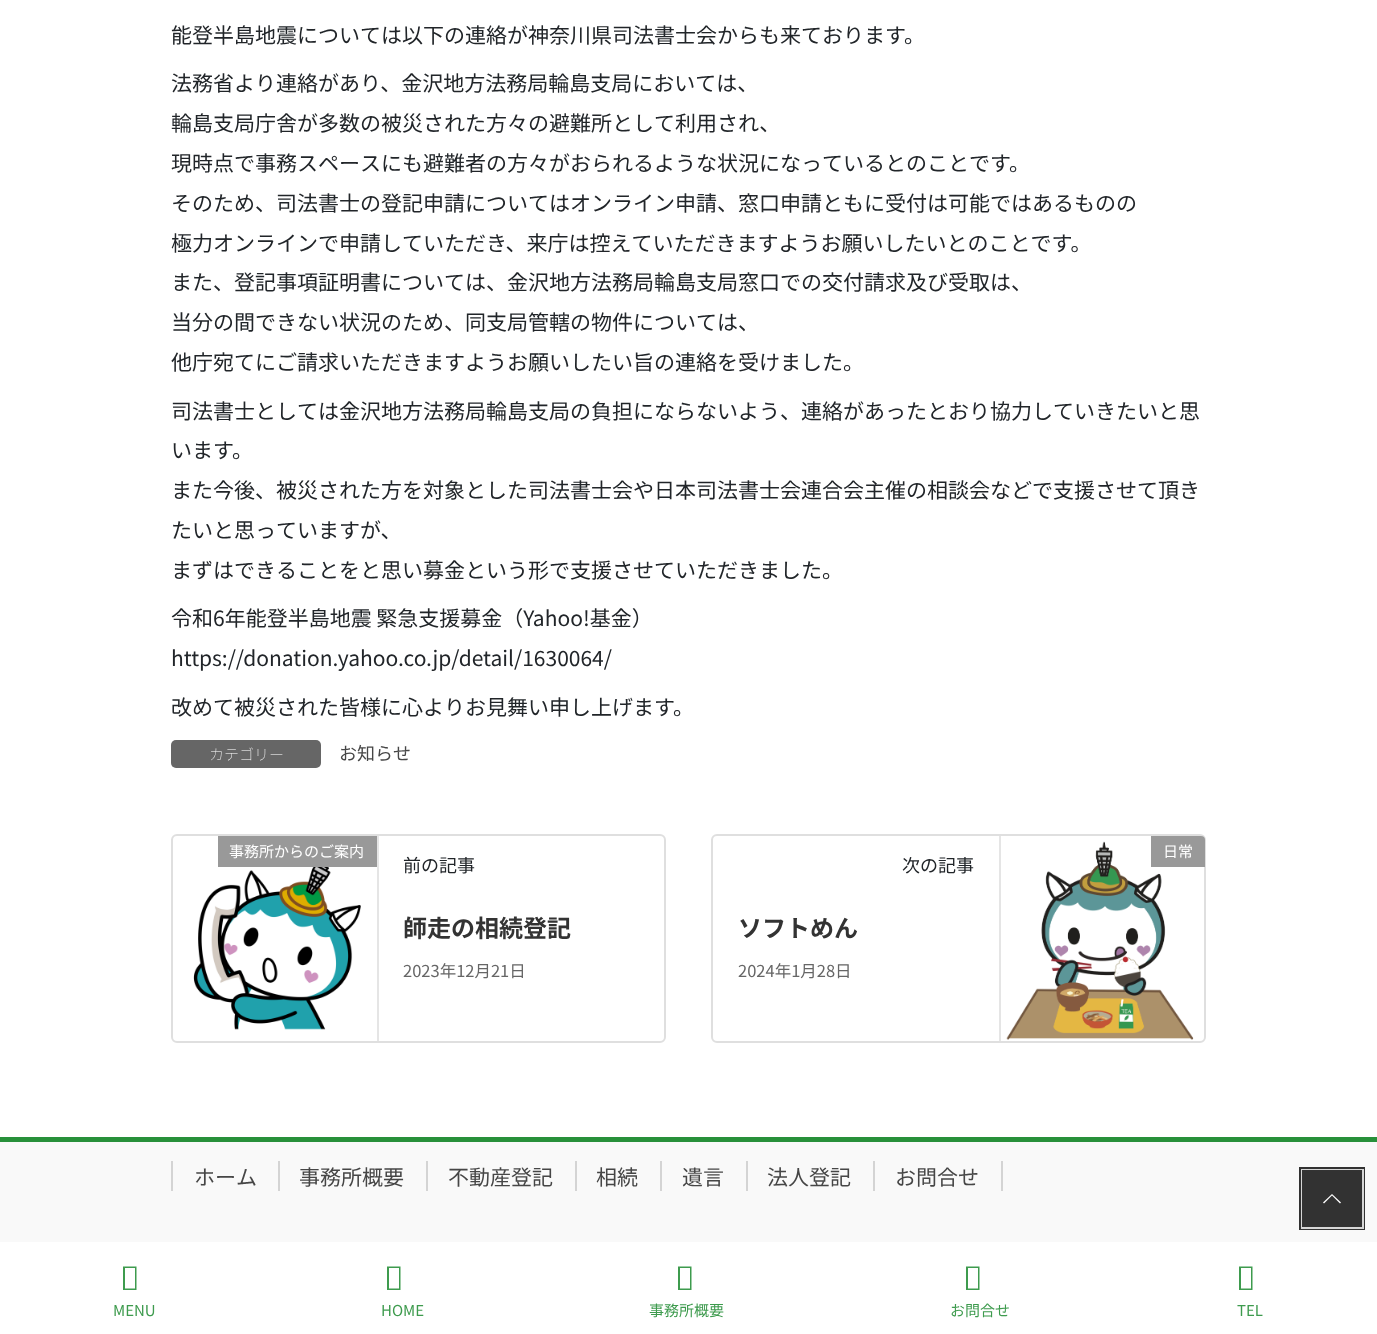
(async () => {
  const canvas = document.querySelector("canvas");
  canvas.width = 1377;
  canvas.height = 1334;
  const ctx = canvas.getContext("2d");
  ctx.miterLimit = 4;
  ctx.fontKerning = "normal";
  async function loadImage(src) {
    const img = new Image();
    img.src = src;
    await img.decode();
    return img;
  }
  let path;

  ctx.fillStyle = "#ffffff";
  ctx.fillRect(0, 0, 1377, 1334);
  ctx.fillStyle = "#666666";
  ctx.beginPath();
  ctx.roundRect(171, 740, 150, 28, 5);
  ctx.fill();
  ctx.beginPath();
  ctx.roundRect(172, 835, 493, 207, 5);
  ctx.strokeStyle = "#dfdfdf";
  ctx.lineWidth = 2;
  ctx.stroke();
  ctx.drawImage(await loadImage("img/1.png"), 193, 867, 168, 163);
  ctx.fillStyle = "#e5e5e5";
  ctx.fillRect(377, 836, 2, 205);
  ctx.fillStyle = "#999999";
  ctx.fillRect(218, 836, 159, 31);
  ctx.beginPath();
  ctx.roundRect(712, 835, 493, 207, 5);
  ctx.stroke();
  ctx.drawImage(await loadImage("img/2.png"), 1006, 841, 188, 199);
  ctx.fillStyle = "#e5e5e5";
  ctx.fillRect(999, 836, 2, 205);
  ctx.fillStyle = "#999999";
  ctx.beginPath();
  ctx.roundRect(1151, 836, 54, 31, [0, 4, 0, 0]);
  ctx.fill();
  for (const [x, y, w, h, color] of [
    [0, 1142, 1377, 100, "#f9f9f9"],
    [0, 1137, 1377, 5, "#28903a"],
    [171, 1161, 2, 30, "#d4d4d4"],
    [278, 1161, 2, 30, "#d4d4d4"],
    [426, 1161, 2, 30, "#d4d4d4"],
    [575, 1161, 2, 30, "#d4d4d4"],
    [660, 1161, 2, 30, "#d4d4d4"],
    [746, 1161, 2, 30, "#d4d4d4"],
    [1001, 1161, 2, 30, "#d4d4d4"],
    [873, 1161, 2, 30, "#d4d4d4"],
  ]) {
    ctx.fillStyle = color;
    ctx.fillRect(x, y, w, h);
  }
  ctx.strokeStyle = "#323232";
  ctx.lineWidth = 3;
  ctx.strokeRect(1300.5, 1168.5, 63, 60);
  ctx.strokeStyle = "rgba(255, 255, 255, 0.8)";
  ctx.lineWidth = 2;
  ctx.strokeRect(1302, 1170, 61, 58);
  ctx.fillStyle = "rgba(0, 0, 0, 0.8)";
  ctx.fillRect(1302, 1170, 60, 57);
  ctx.fillStyle = "#ffffff";
  path = new Path2D("M1341 1202.5L1340 1203.5L1332 1195.5L1324 1203.5L1323 1202.5L1332 1194Z");
  ctx.fill(path);
  ctx.fillStyle = "#3e9b4e";
  path = new Path2D("M123 1290V1266.5H136.5V1290ZM125 1288.5H135V1268H125Z");
  ctx.fill(path);
  path = new Path2D("M387 1290V1266.5H400.5V1290ZM389 1288.5H399V1268H389Z");
  ctx.fill(path);
  path = new Path2D("M678 1290V1266.5H691.5V1290ZM680 1288.5H690V1268H680Z");
  ctx.fill(path);
  path = new Path2D("M966 1290V1266.5H979.5V1290ZM968 1288.5H978V1268H968Z");
  ctx.fill(path);
  path = new Path2D("M1239 1290V1266.5H1252.5V1290ZM1241 1288.5H1251V1268H1241Z");
  ctx.fill(path);
  ctx.font = "21px Noto Sans JP";
  ctx.fillStyle = "#212529";
  for (const [text, x, y] of [
    ["能登半島地震については以下の連絡が神奈川県司法書士会からも来ております。", 171, 43],
    ["法務省より連絡があり、金沢地方法務局輪島支局においては、", 171, 91],
    ["輪島支局庁舎が多数の被災された方々の避難所として利用され、", 171, 131],
    ["現時点で事務スペースにも避難者の方々がおられるような状況になっているとのことです。", 171, 171],
    ["そのため、司法書士の登記申請についてはオンライン申請、窓口申請ともに受付は可能ではあるものの", 171, 211],
    ["極力オンラインで申請していただき、来庁は控えていただきますようお願いしたいとのことです。", 171, 251],
    ["また、登記事項証明書については、金沢地方法務局輪島支局窓口での交付請求及び受取は、", 171, 290],
    ["当分の間できない状況のため、同支局管轄の物件については、", 171, 330],
    ["他庁宛てにご請求いただきますようお願いしたい旨の連絡を受けました。", 171, 370],
    ["司法書士としては金沢地方法務局輪島支局の負担にならないよう、連絡があったとおり協力していきたいと思", 171, 419],
    ["います。", 171, 458],
    ["また今後、被災された方を対象とした司法書士会や日本司法書士会連合会主催の相談会などで支援させて頂き", 171, 498],
    ["たいと思っていますが、", 171, 538],
    ["まずはできることをと思い募金という形で支援させていただきました。", 171, 578],
    ["令和6年能登半島地震 緊急支援募金（Yahoo!基金）", 171, 626],
    ["https://donation.yahoo.co.jp/detail/1630064/", 171, 666],
    ["改めて被災された皆様に心よりお見舞い申し上げます。", 171, 715],
  ]) {
    ctx.fillText(text, x, y);
  }
  ctx.font = "100 15px Noto Sans JP";
  ctx.fillStyle = "#ffffff";
  ctx.fillText("カテゴリー", 209, 760);
  ctx.font = "18px Noto Sans JP";
  ctx.fillStyle = "#464646";
  ctx.fillText("お知らせ", 339, 760);
  ctx.font = "15px Noto Sans JP";
  ctx.fillStyle = "#ffffff";
  ctx.fillText("事務所からのご案内", 229, 857);
  ctx.font = "18px Noto Sans JP";
  ctx.fillStyle = "#212529";
  ctx.fillText("前の記事", 403, 872);
  ctx.font = "bold 24px Noto Sans JP";
  ctx.fillStyle = "#333333";
  ctx.fillText("師走の相続登記", 403, 937);
  ctx.font = "16.5px Noto Sans JP";
  ctx.fillStyle = "#666666";
  ctx.fillText("2023年12月21日", 403, 977);
  ctx.font = "15px Noto Sans JP";
  ctx.fillStyle = "#ffffff";
  ctx.fillText("日常", 1163, 857);
  ctx.font = "18px Noto Sans JP";
  ctx.fillStyle = "#212529";
  ctx.fillText("次の記事", 902, 872);
  ctx.font = "bold 24px Noto Sans JP";
  ctx.fillStyle = "#333333";
  ctx.fillText("ソフトめん", 738, 937);
  ctx.font = "16.5px Noto Sans JP";
  ctx.fillStyle = "#666666";
  ctx.fillText("2024年1月28日", 738, 977);
  ctx.font = "21px Noto Sans JP";
  ctx.fillStyle = "#464646";
  for (const [text, x, y] of [
    ["ホーム", 194, 1185],
    ["事務所概要", 299, 1185],
    ["不動産登記", 448, 1185],
    ["相続", 596, 1185],
    ["遺言", 682, 1185],
    ["法人登記", 767, 1185],
    ["お問合せ", 895, 1185],
  ]) {
    ctx.fillText(text, x, y);
  }
  ctx.font = "15px Noto Sans JP";
  ctx.fillStyle = "#3e9b4e";
  for (const [text, x, y] of [
    ["MENU", 113, 1316],
    ["HOME", 381, 1316],
    ["事務所概要", 649, 1316],
    ["お問合せ", 950, 1316],
    ["TEL", 1237, 1316],
  ]) {
    ctx.fillText(text, x, y);
  }
})();
